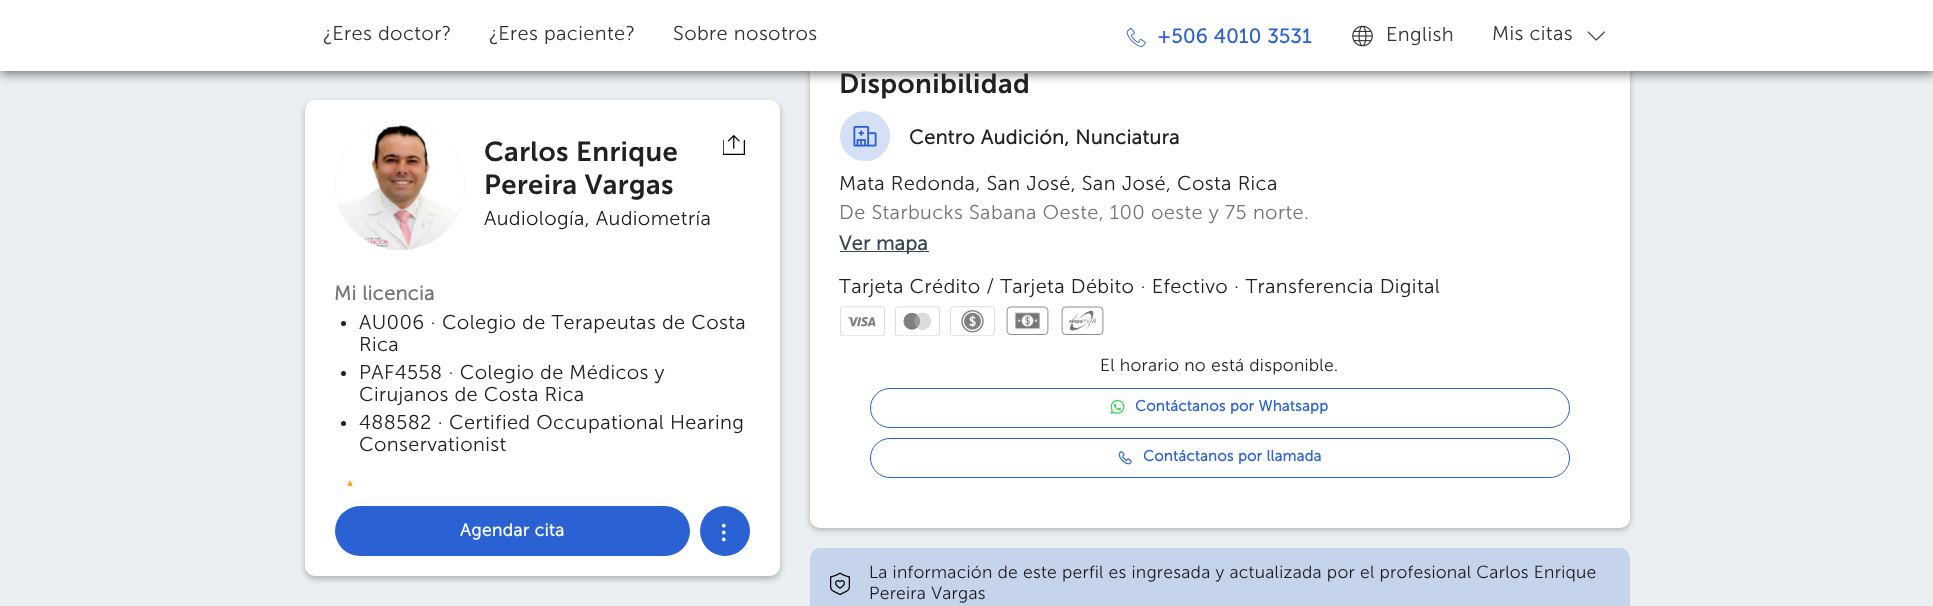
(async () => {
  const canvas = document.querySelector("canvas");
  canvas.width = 1933;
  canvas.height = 606;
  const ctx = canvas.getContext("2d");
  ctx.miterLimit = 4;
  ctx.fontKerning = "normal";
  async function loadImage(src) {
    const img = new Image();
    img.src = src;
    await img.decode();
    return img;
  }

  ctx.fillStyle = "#eceff1";
  ctx.fillRect(0, 0, 1933, 606);
  ctx.fillStyle = "rgba(0, 0, 0, 0.26)";
  ctx.filter = "blur(3px)";
  ctx.beginPath();
  ctx.roundRect(810, -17, 820, 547, 10);
  ctx.fill();
  ctx.filter = "none";
  ctx.fillStyle = "#ffffff";
  ctx.beginPath();
  ctx.roundRect(810, -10, 820, 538, 10);
  ctx.fill();
  ctx.fillStyle = "rgba(50, 50, 50, 0.75)";
  ctx.filter = "blur(6px)";
  ctx.beginPath();
  ctx.rect(0, 1, 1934, 72);
  ctx.fill();
  ctx.filter = "none";
  ctx.fillStyle = "#ffffff";
  ctx.fillRect(0, 0, 1933, 71);
  ctx.drawImage(await loadImage("img/1.png"), 1126, 28, 20, 19);
  ctx.drawImage(await loadImage("img/2.png"), 1352, 25, 21, 22);
  ctx.drawImage(await loadImage("img/3.png"), 1587, 31, 18, 10);
  ctx.fillStyle = "rgba(0, 0, 0, 0.26)";
  ctx.filter = "blur(3px)";
  ctx.beginPath();
  ctx.roundRect(305, 103, 475, 476, 10);
  ctx.fill();
  ctx.filter = "none";
  ctx.fillStyle = "#ffffff";
  ctx.beginPath();
  ctx.roundRect(305, 100, 475, 476, 10);
  ctx.fill();
  ctx.beginPath();
  ctx.arc(400, 185, 64.5, 0, Math.PI * 2);
  ctx.strokeStyle = "#d9d9d9";
  ctx.stroke();
  ctx.drawImage(await loadImage("img/4.png"), 335, 120, 130, 130);
  ctx.drawImage(await loadImage("img/5.png"), 723, 135, 22, 20);
  ctx.fillStyle = "#212121";
  ctx.beginPath();
  ctx.arc(343.5, 323.5, 2.5, 0, Math.PI * 2);
  ctx.fill();
  ctx.beginPath();
  ctx.arc(343.5, 373.5, 2.5, 0, Math.PI * 2);
  ctx.fill();
  ctx.beginPath();
  ctx.arc(343.5, 423.5, 2.5, 0, Math.PI * 2);
  ctx.fill();
  ctx.drawImage(await loadImage("img/6.png"), 347, 480, 6, 6);
  ctx.fillStyle = "#2a62d4";
  ctx.beginPath();
  ctx.roundRect(335, 506, 355, 50, 25);
  ctx.fill();
  ctx.beginPath();
  ctx.arc(725, 531, 25, 0, Math.PI * 2);
  ctx.fill();
  ctx.drawImage(await loadImage("img/7.png"), 721, 523, 5, 19);
  ctx.drawImage(await loadImage("img/8.png"), 840, 111, 50, 50);
  ctx.fillStyle = "#37474f";
  ctx.fillRect(840, 251, 89, 1);
  ctx.drawImage(await loadImage("img/9.png"), 840, 306, 45, 30);
  ctx.drawImage(await loadImage("img/10.png"), 895, 306, 45, 30);
  ctx.drawImage(await loadImage("img/11.png"), 950, 306, 45, 30);
  ctx.drawImage(await loadImage("img/12.png"), 1006, 306, 43, 29);
  ctx.drawImage(await loadImage("img/13.png"), 1061, 306, 43, 29);
  ctx.beginPath();
  ctx.roundRect(870.5, 388.5, 699, 39, 19.5);
  ctx.strokeStyle = "#2a62d4";
  ctx.stroke();
  ctx.drawImage(await loadImage("img/14.png"), 1110, 400, 15, 14);
  ctx.beginPath();
  ctx.roundRect(870.5, 438.5, 699, 39, 19.5);
  ctx.stroke();
  ctx.drawImage(await loadImage("img/15.png"), 1118, 451, 14, 14);
  ctx.fillStyle = "#c5d3eb";
  ctx.beginPath();
  ctx.roundRect(810, 548, 820, 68, 10);
  ctx.fill();
  ctx.drawImage(await loadImage("img/16.png"), 830, 572, 20, 24);
  ctx.letterSpacing = "0.38px";
  ctx.font = "20px 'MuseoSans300'";
  ctx.fillStyle = "#333333";
  for (const [text, x, y] of [
    ["¿Eres doctor?", 323, 40],
    ["¿Eres paciente?", 489, 40],
    ["Sobre nosotros", 673, 40],
  ]) {
    ctx.fillText(text, x, y);
  }
  ctx.font = "bold 20px 'MuseoSans300'";
  ctx.fillStyle = "#2a62d4";
  ctx.fillText("+506 4010 3531", 1157, 43);
  ctx.font = "20px 'MuseoSans300'";
  ctx.fillStyle = "#333333";
  ctx.fillText("English", 1386, 41);
  ctx.fillText("Mis citas", 1492, 40);
  ctx.font = "27.5px 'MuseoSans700'";
  ctx.fillStyle = "#212121";
  ctx.fillText("Carlos Enrique", 484, 161);
  ctx.fillText("Pereira Vargas", 484, 194);
  ctx.font = "20px 'MuseoSans300'";
  ctx.fillText("Audiología, Audiometría", 484, 225);
  ctx.font = "bold 20px 'MuseoSans300'";
  ctx.fillStyle = "#757575";
  ctx.fillText("Mi licencia", 334, 300);
  ctx.font = "20px 'MuseoSans300'";
  ctx.fillStyle = "#212121";
  for (const [text, x, y] of [
    ["AU006 · Colegio de Terapeutas de Costa", 359, 329],
    ["Rica", 359, 351],
    ["PAF4558 · Colegio de Médicos y", 359, 379],
    ["Cirujanos de Costa Rica", 359, 401],
    ["488582 · Certified Occupational Hearing", 359, 429],
    ["Conservationist", 359, 451],
  ]) {
    ctx.fillText(text, x, y);
  }
  ctx.font = "bold 17.5px 'MuseoSans300'";
  ctx.fillStyle = "#ffffff";
  ctx.fillText("Agendar cita", 460, 536);
  ctx.font = "27.5px 'MuseoSans700'";
  ctx.fillStyle = "#212121";
  ctx.fillText("Disponibilidad", 839, 93);
  ctx.font = "bold 20px 'MuseoSans300'";
  ctx.fillText("Centro Audición, Nunciatura", 909, 144);
  ctx.font = "20px 'MuseoSans300'";
  ctx.fillText("Mata Redonda, San José, San José, Costa Rica", 839, 190);
  ctx.fillStyle = "#757575";
  ctx.fillText("De Starbucks Sabana Oeste, 100 oeste y 75 norte.", 839, 219);
  ctx.letterSpacing = "0.25px";
  ctx.font = "bold 20px 'MuseoSans300'";
  ctx.fillStyle = "#37474f";
  ctx.fillText("Ver mapa", 839, 250);
  ctx.letterSpacing = "0.38px";
  ctx.font = "20px 'MuseoSans300'";
  ctx.fillStyle = "#212121";
  ctx.fillText("Tarjeta Crédito / Tarjeta Débito · Efectivo · Transferencia Digital", 839, 293);
  ctx.letterSpacing = "0.25px";
  ctx.font = "17.5px 'MuseoSans300'";
  ctx.fillText("El horario no está disponible.", 1100, 371);
  ctx.font = "bold 15px 'MuseoSans300'";
  ctx.fillStyle = "#2a62d4";
  ctx.fillText("Contáctanos por Whatsapp", 1135, 411);
  ctx.fillText("Contáctanos por llamada", 1143, 461);
  ctx.font = "17.5px 'MuseoSans300'";
  ctx.fillStyle = "#1a1b1f";
  ctx.fillText("La información de este perfil es ingresada y actualizada por el profesional Carlos Enrique", 869, 578);
  ctx.fillText("Pereira Vargas", 869, 599);
})();
